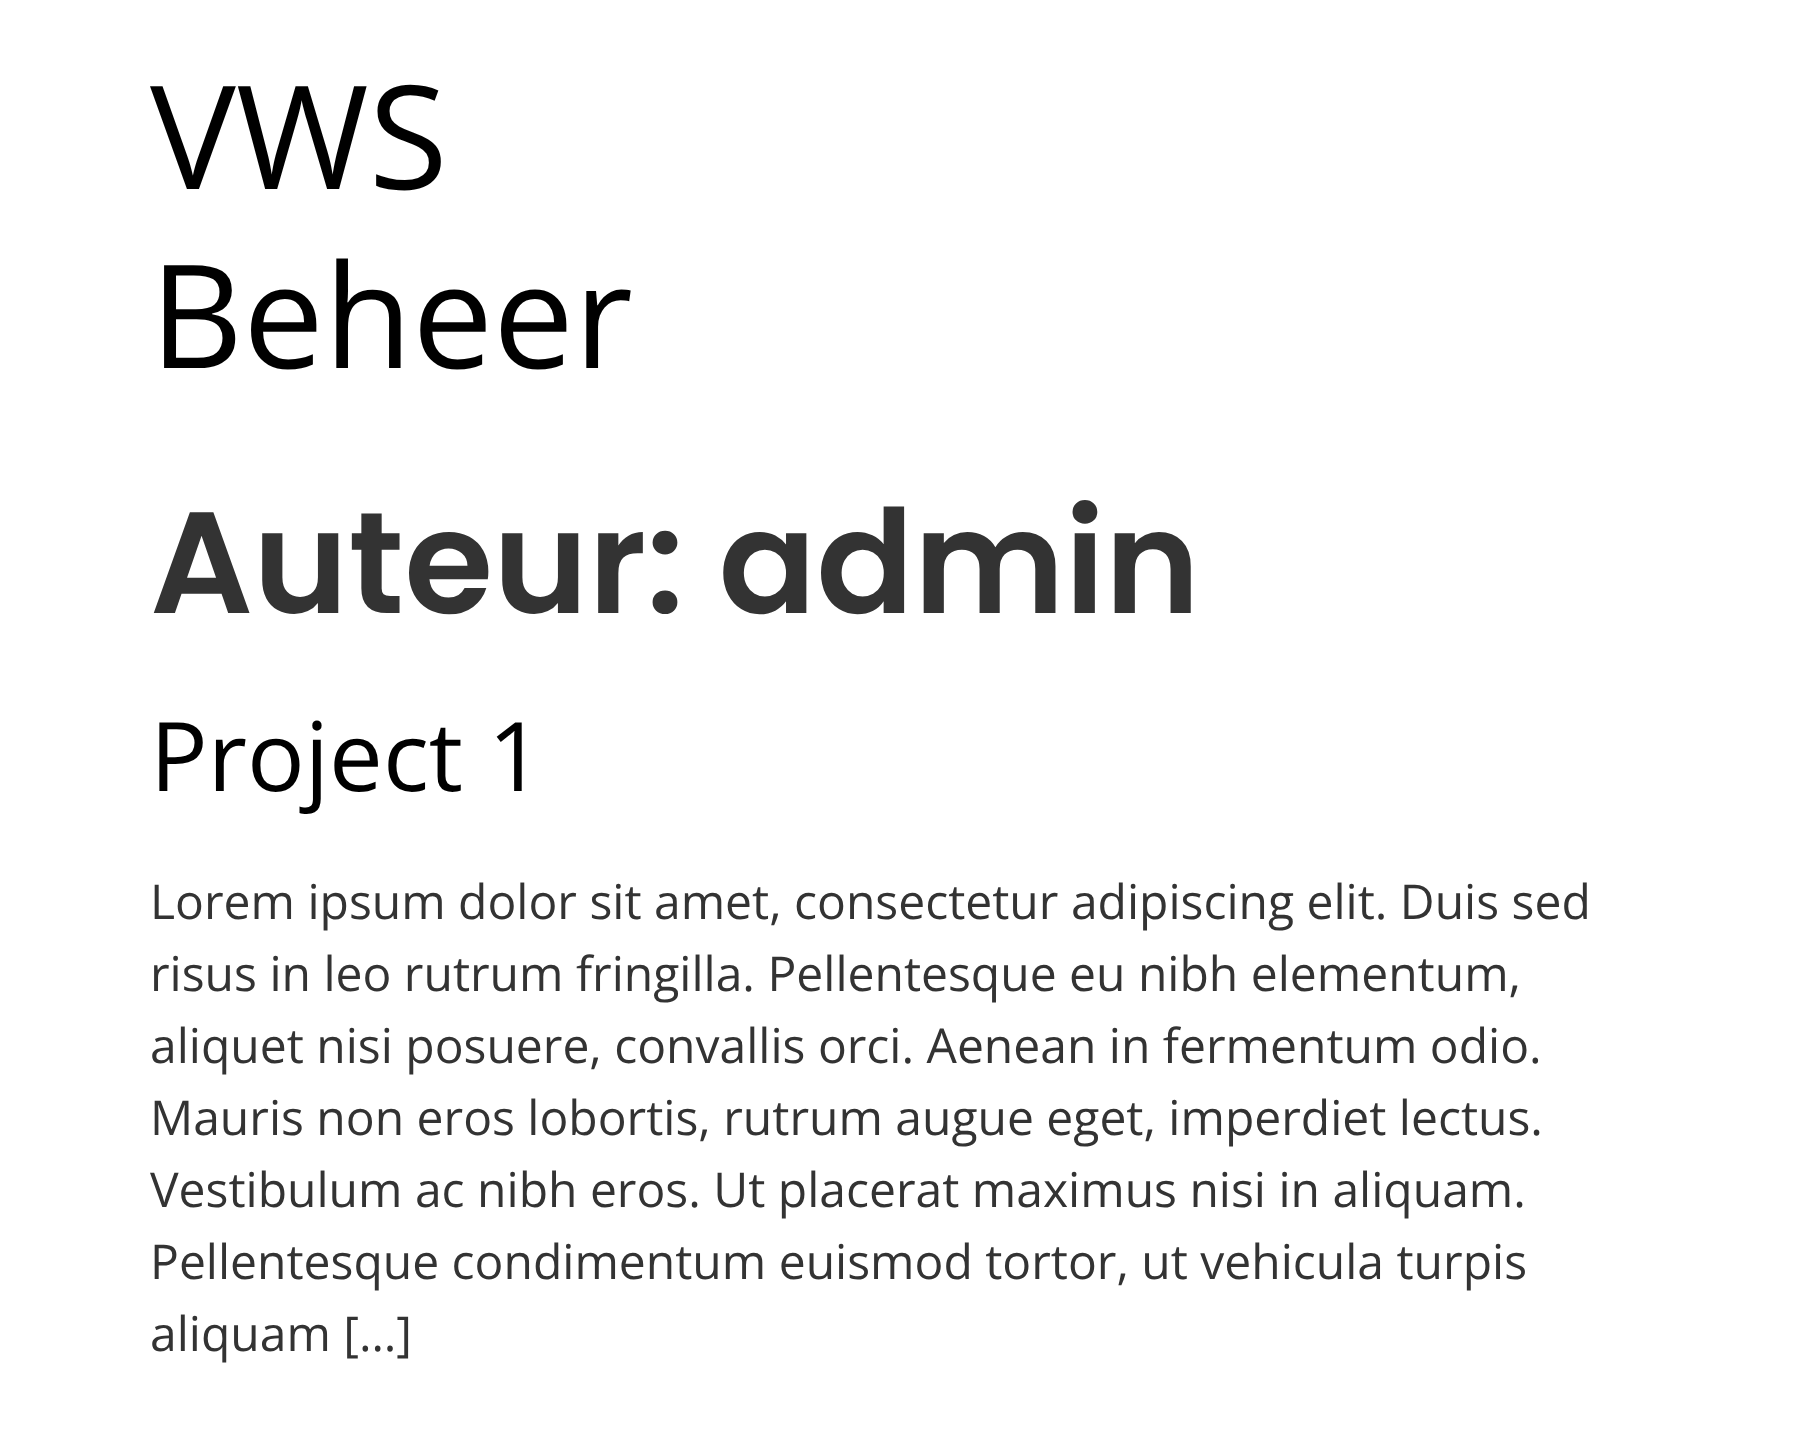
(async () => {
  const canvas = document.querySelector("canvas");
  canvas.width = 1800;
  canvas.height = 1449;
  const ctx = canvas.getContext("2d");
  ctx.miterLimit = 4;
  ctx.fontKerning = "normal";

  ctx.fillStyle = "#ffffff";
  ctx.fillRect(0, 0, 1800, 1449);
  ctx.font = "144px Open Sans";
  ctx.fillStyle = "#000000";
  ctx.fillText("VWS", 150, 189);
  ctx.fillText("Beheer", 150, 368);
  ctx.font = "600 144px Poppins";
  ctx.fillStyle = "#333333";
  ctx.fillText("Auteur: admin", 150, 613);
  ctx.font = "96px Open Sans";
  ctx.fillStyle = "#000000";
  ctx.fillText("Project 1", 150, 791);
  ctx.font = "48px Open Sans";
  ctx.fillStyle = "#333333";
  for (const [text, x, y] of [
    ["Lorem ipsum dolor sit amet, consectetur adipiscing elit. Duis sed", 150, 919],
    ["risus in leo rutrum fringilla. Pellentesque eu nibh elementum,", 150, 991],
    ["aliquet nisi posuere, convallis orci. Aenean in fermentum odio.", 150, 1063],
    ["Mauris non eros lobortis, rutrum augue eget, imperdiet lectus.", 150, 1135],
    ["Vestibulum ac nibh eros. Ut placerat maximus nisi in aliquam.", 150, 1207],
    ["Pellentesque condimentum euismod tortor, ut vehicula turpis", 150, 1279],
    ["aliquam […]", 150, 1351],
  ]) {
    ctx.fillText(text, x, y);
  }
})();
